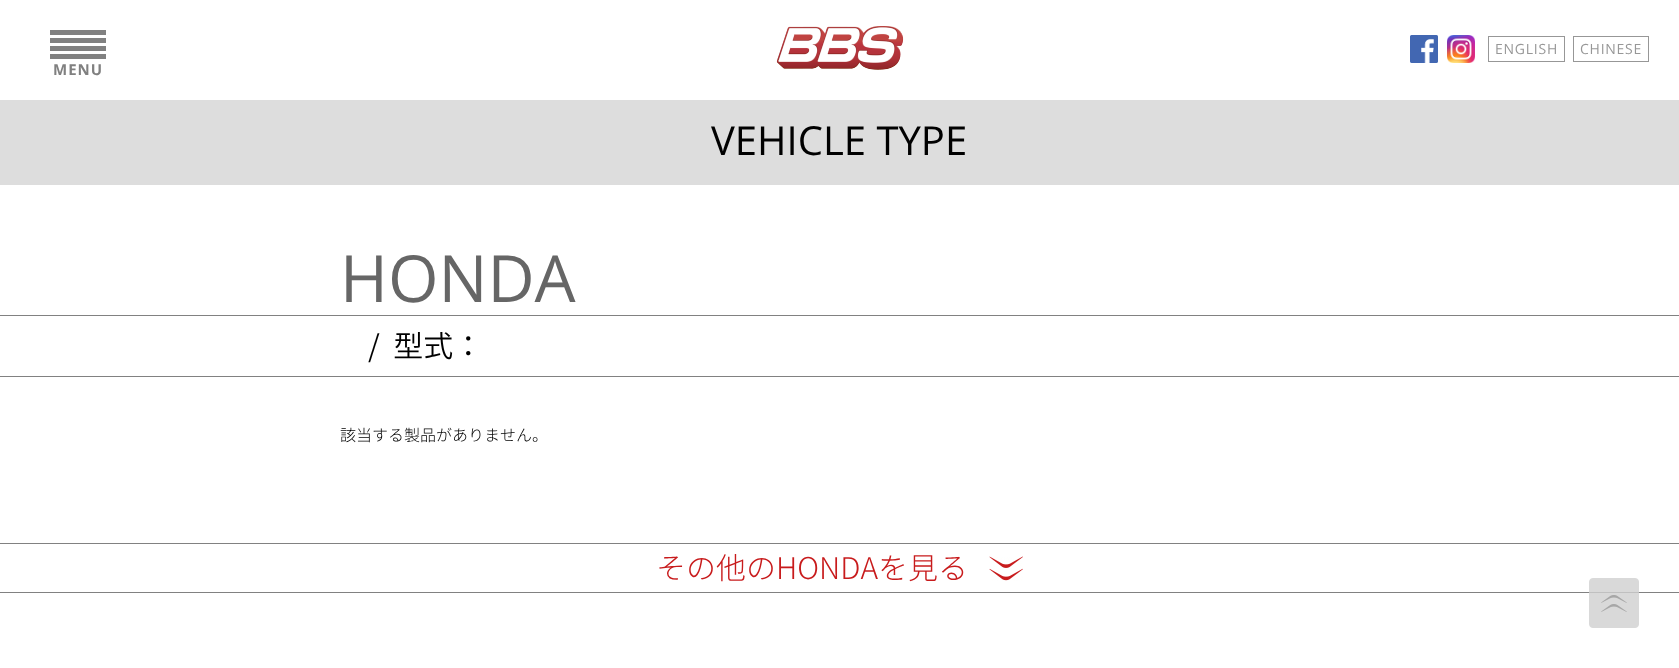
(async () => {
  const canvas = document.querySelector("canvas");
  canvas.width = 1679;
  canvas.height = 668;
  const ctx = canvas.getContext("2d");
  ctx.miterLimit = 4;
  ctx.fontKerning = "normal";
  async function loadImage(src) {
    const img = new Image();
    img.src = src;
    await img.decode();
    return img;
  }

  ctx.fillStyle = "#ffffff";
  ctx.fillRect(0, 0, 1679, 668);
  ctx.drawImage(await loadImage("img/1.png"), 776, 26, 128, 44);
  ctx.drawImage(await loadImage("img/2.png"), 1410, 35, 28, 28);
  ctx.drawImage(await loadImage("img/3.png"), 1447, 35, 28, 28);
  ctx.strokeStyle = "#979797";
  ctx.strokeRect(1488.5, 36.5, 76, 25);
  ctx.strokeRect(1573.5, 36.5, 75, 25);
  for (const [x, y, w, h, color] of [
    [50, 30, 56, 5, "#818181"],
    [50, 38, 56, 5, "#818181"],
    [50, 46, 56, 5, "#818181"],
    [50, 54, 56, 5, "#818181"],
    [0, 100, 1679, 85, "#dddddd"],
    [0, 315, 1679, 1, "#818181"],
    [0, 376, 1679, 1, "#818181"],
    [0, 543, 1679, 1, "#818181"],
    [0, 592, 1679, 1, "#818181"],
  ]) {
    ctx.fillStyle = color;
    ctx.fillRect(x, y, w, h);
  }
  ctx.drawImage(await loadImage("img/4.png"), 989, 556, 34, 25);
  ctx.drawImage(await loadImage("img/5.png"), 1589, 578, 50, 50);
  ctx.letterSpacing = "0.75px";
  ctx.font = "14px Open Sans";
  ctx.fillStyle = "#979797";
  ctx.fillText("ENGLISH", 1495, 54);
  ctx.fillText("CHINESE", 1580, 54);
  ctx.letterSpacing = "1px";
  ctx.font = "bold 15px Open Sans";
  ctx.fillStyle = "#808080";
  ctx.fillText("MENU", 53, 75);
  ctx.letterSpacing = "0px";
  ctx.font = "40px Open Sans";
  ctx.fillStyle = "#000000";
  ctx.fillText("VEHICLE TYPE", 711, 155);
  ctx.font = "65px Open Sans";
  ctx.fillStyle = "#666666";
  ctx.fillText("HONDA", 340, 302);
  ctx.font = "300 30px Noto Sans CJK JP";
  ctx.fillStyle = "#000000";
  ctx.fillText("/  型式：", 368, 357);
  ctx.font = "300 16px 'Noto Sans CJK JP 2'";
  ctx.fillText("該当する製品がありません。", 340, 441);
  ctx.font = "300 30px 'Noto Sans CJK JP 2'";
  ctx.fillStyle = "#c81b1c";
  ctx.fillText("その他のHONDAを見る", 656, 579);
})();
